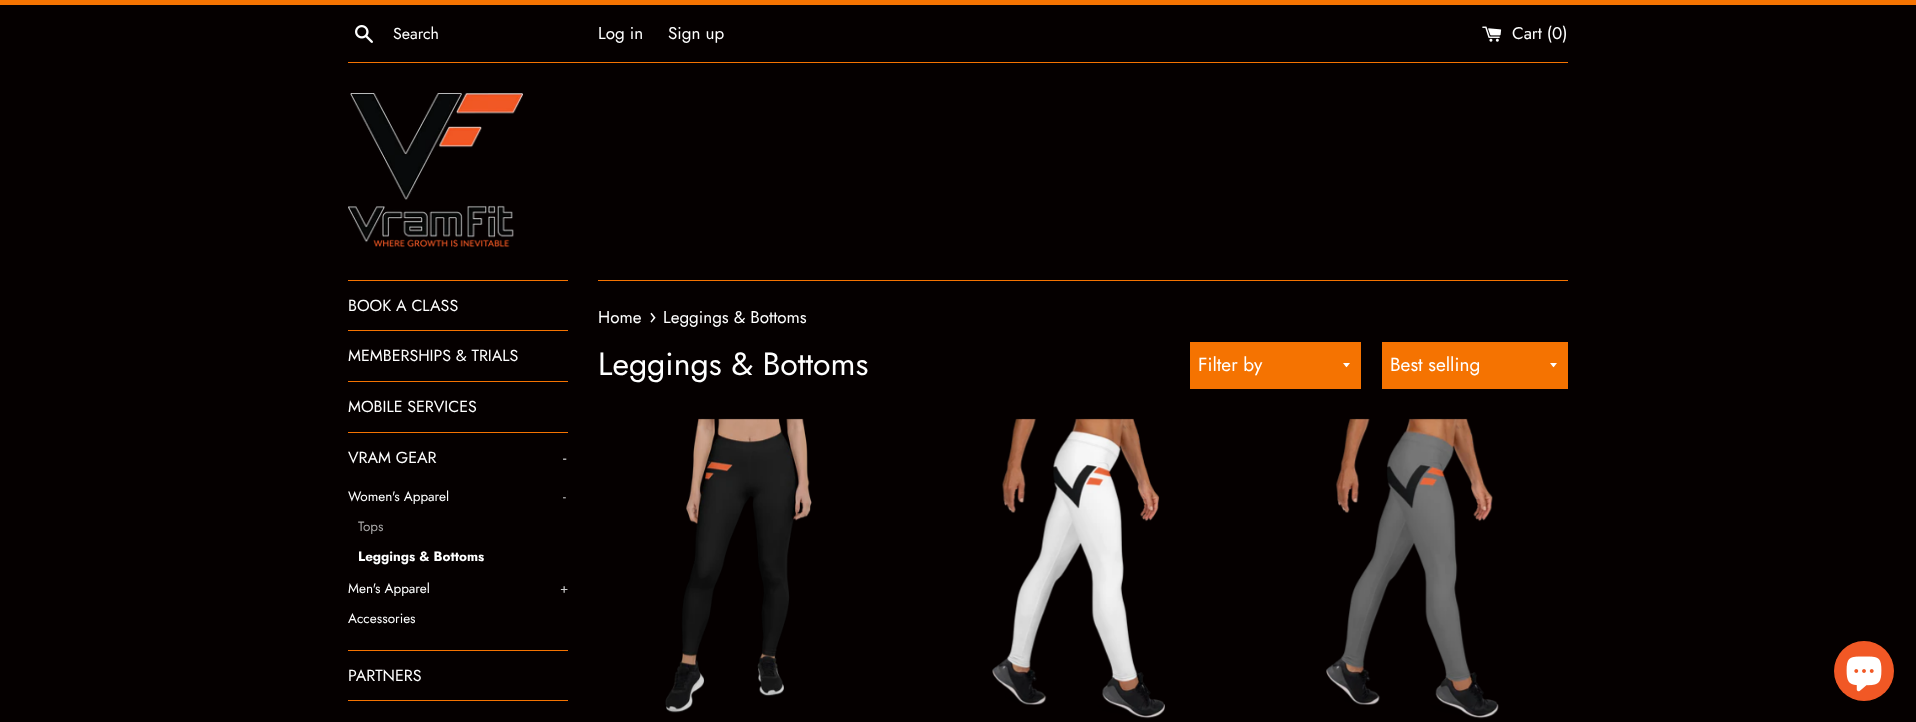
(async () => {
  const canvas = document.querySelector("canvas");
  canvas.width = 1916;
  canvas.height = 722;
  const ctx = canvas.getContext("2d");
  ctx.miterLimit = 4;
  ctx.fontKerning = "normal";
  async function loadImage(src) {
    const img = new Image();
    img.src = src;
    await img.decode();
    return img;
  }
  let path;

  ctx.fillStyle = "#050000";
  ctx.fillRect(0, 0, 1916, 722);
  ctx.fillStyle = "#f57301";
  ctx.fillRect(0, 0, 1916, 5);
  ctx.drawImage(await loadImage("img/1.png"), 355, 25, 18, 18);
  ctx.drawImage(await loadImage("img/2.png"), 1482, 26, 20, 16);
  ctx.fillRect(348, 62, 1220, 1);
  ctx.drawImage(await loadImage("img/3.png"), 348, 93, 175, 155);
  for (const [x, y, w, h, color] of [
    [348, 280, 220, 1, "#f57301"],
    [348, 330, 220, 1, "#f57301"],
    [348, 381, 220, 1, "#f57301"],
    [348, 432, 220, 1, "#f57301"],
    [348, 650, 220, 1, "#f57301"],
    [348, 700, 220, 1, "#f57301"],
    [598, 280, 970, 1, "#f57301"],
    [1190, 342, 171, 47, "#f57301"],
  ]) {
    ctx.fillStyle = color;
    ctx.fillRect(x, y, w, h);
  }
  ctx.fillStyle = "#ffffff";
  path = new Path2D("M1343 363C1347.5 368.5 1345.5 368.5 1350 363Z");
  ctx.fill(path);
  ctx.fillStyle = "#f57301";
  ctx.fillRect(1382, 342, 186, 47);
  ctx.fillStyle = "#ffffff";
  path = new Path2D("M1550 363C1554.5 368.5 1552.5 368.5 1557 363Z");
  ctx.fill(path);
  ctx.drawImage(await loadImage("img/4.png"), 665, 418, 147, 295);
  ctx.drawImage(await loadImage("img/5.png"), 992, 418, 173, 301);
  ctx.drawImage(await loadImage("img/6.png"), 1326, 418, 173, 301);
  ctx.fillStyle = "#f15825";
  ctx.beginPath();
  ctx.arc(1864, 671, 30, 0, Math.PI * 2);
  ctx.fill();
  ctx.drawImage(await loadImage("img/7.png"), 1846, 656, 36, 36);
  ctx.font = "16px Jost";
  ctx.fillStyle = "#ffffff";
  ctx.fillText("Search", 393, 39);
  ctx.font = "17px Jost";
  for (const [text, x, y] of [
    ["Log in", 598, 39],
    ["Sign up", 668, 39],
    ["Cart (0)", 1512, 39],
  ]) {
    ctx.fillText(text, x, y);
  }
  ctx.font = "16px Jost";
  for (const [text, x, y] of [
    ["BOOK A CLASS", 348, 311],
    ["MEMBERSHIPS & TRIALS", 348, 361],
    ["MOBILE SERVICES", 348, 412],
    ["VRAM GEAR", 348, 463],
  ]) {
    ctx.fillText(text, x, y);
  }
  ctx.fillStyle = "#cdcccc";
  ctx.fillText("-", 563, 463);
  ctx.font = "13.5px Jost";
  ctx.fillStyle = "#ffffff";
  ctx.fillText("Women's Apparel", 348, 501);
  ctx.fillStyle = "#cdcccc";
  ctx.fillText("-", 563, 501);
  ctx.fillStyle = "#a8a6a6";
  ctx.fillText("Tops", 358, 531);
  ctx.font = "bold 13.5px Jost";
  ctx.fillStyle = "#ffffff";
  ctx.fillText("Leggings & Bottoms", 358, 561);
  ctx.font = "13.5px Jost";
  ctx.fillText("Men's Apparel", 348, 593);
  ctx.fillStyle = "#cdcccc";
  ctx.fillText("+", 560, 593);
  ctx.fillStyle = "#ffffff";
  ctx.fillText("Accessories", 348, 623);
  ctx.font = "16px Jost";
  ctx.fillText("PARTNERS", 348, 681);
  ctx.font = "17px Jost";
  ctx.fillText("Home", 598, 323);
  ctx.font = "21px Jost";
  ctx.fillText("›", 649, 323);
  ctx.font = "17px Jost";
  ctx.fillText("Leggings & Bottoms", 663, 323);
  ctx.font = "32px Jost";
  ctx.fillText("Leggings & Bottoms", 598, 375);
  ctx.font = "19px Jost";
  ctx.fillText("Filter by", 1198, 371);
  ctx.fillText("Best selling", 1390, 371);
})();
